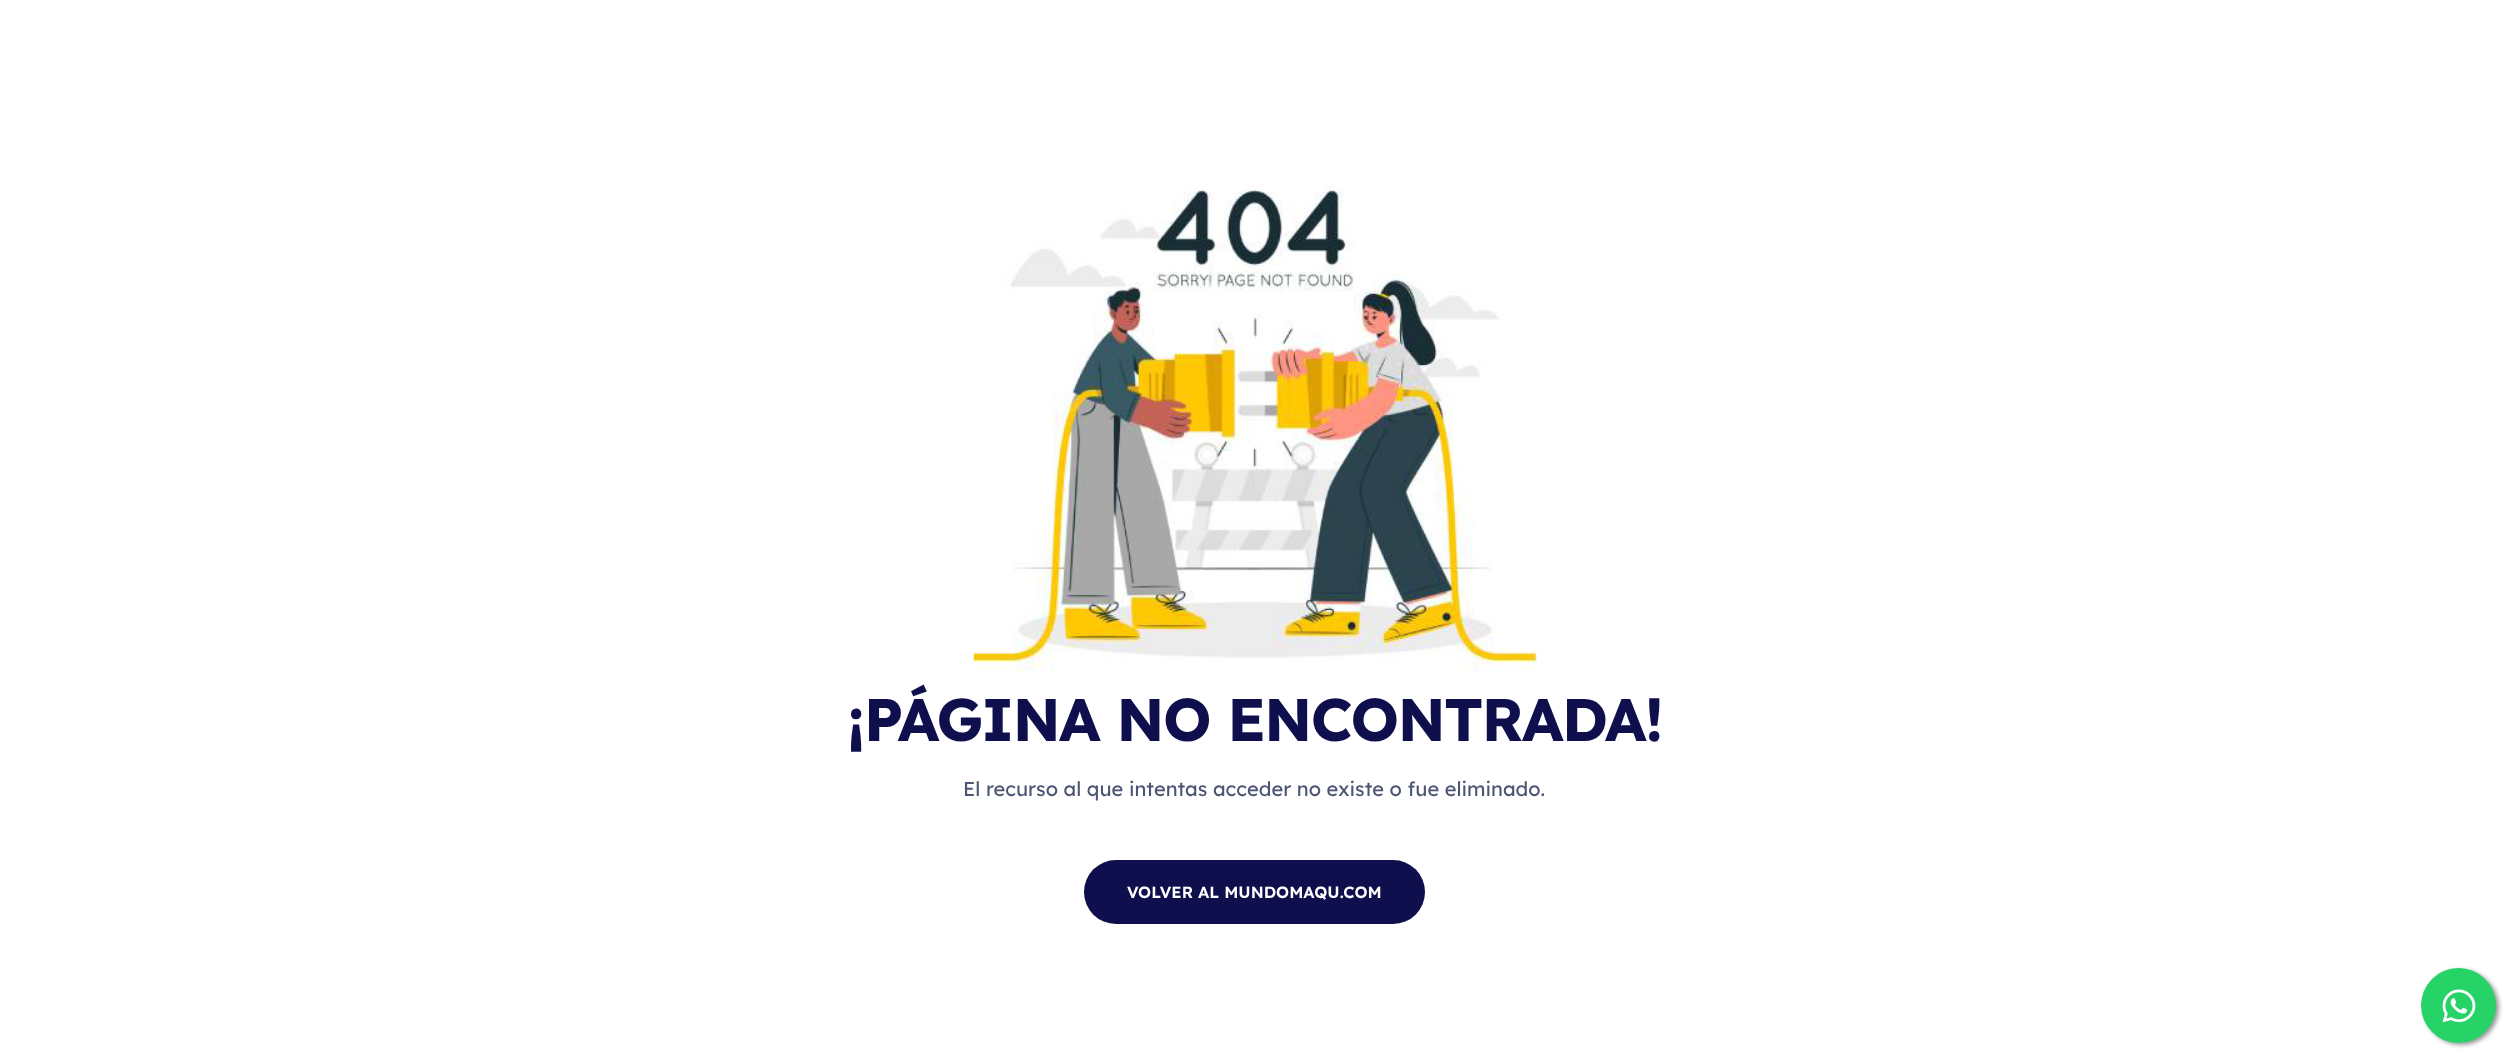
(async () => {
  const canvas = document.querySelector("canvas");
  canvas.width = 2508;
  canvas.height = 1055;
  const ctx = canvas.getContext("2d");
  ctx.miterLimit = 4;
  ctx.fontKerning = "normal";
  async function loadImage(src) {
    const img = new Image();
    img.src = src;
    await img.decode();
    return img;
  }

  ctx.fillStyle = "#ffffff";
  ctx.fillRect(0, 0, 2508, 1055);
  ctx.drawImage(await loadImage("img/1.png"), 973, 183, 564, 489);
  ctx.fillStyle = "#0f0f4d";
  ctx.beginPath();
  ctx.roundRect(1084, 860, 341, 64, 32);
  ctx.fill();
  ctx.fillStyle = "#999999";
  ctx.filter = "blur(2px)";
  ctx.beginPath();
  ctx.roundRect(2424, 970, 75, 75, 37.5);
  ctx.fill();
  ctx.filter = "none";
  ctx.fillStyle = "#25d366";
  ctx.beginPath();
  ctx.arc(2458.5, 1005.5, 37.5, 0, Math.PI * 2);
  ctx.fill();
  ctx.drawImage(await loadImage("img/2.png"), 2442, 989, 34, 34);
  ctx.letterSpacing = "-1.8px";
  ctx.font = "bold 60px Lexend";
  ctx.fillStyle = "#0f0f4d";
  ctx.fillText("¡PÁGINA NO ENCONTRADA!", 847, 741);
  ctx.letterSpacing = "0px";
  ctx.font = "20px Lexend";
  ctx.fillStyle = "#4d5574";
  ctx.fillText("El recurso al que intentas acceder no existe o fue eliminado.", 963, 796);
  ctx.font = "600 16.25px Lexend";
  ctx.fillStyle = "#ffffff";
  ctx.fillText("VOLVER AL MUNDOMAQU.COM", 1127, 898);
})();
